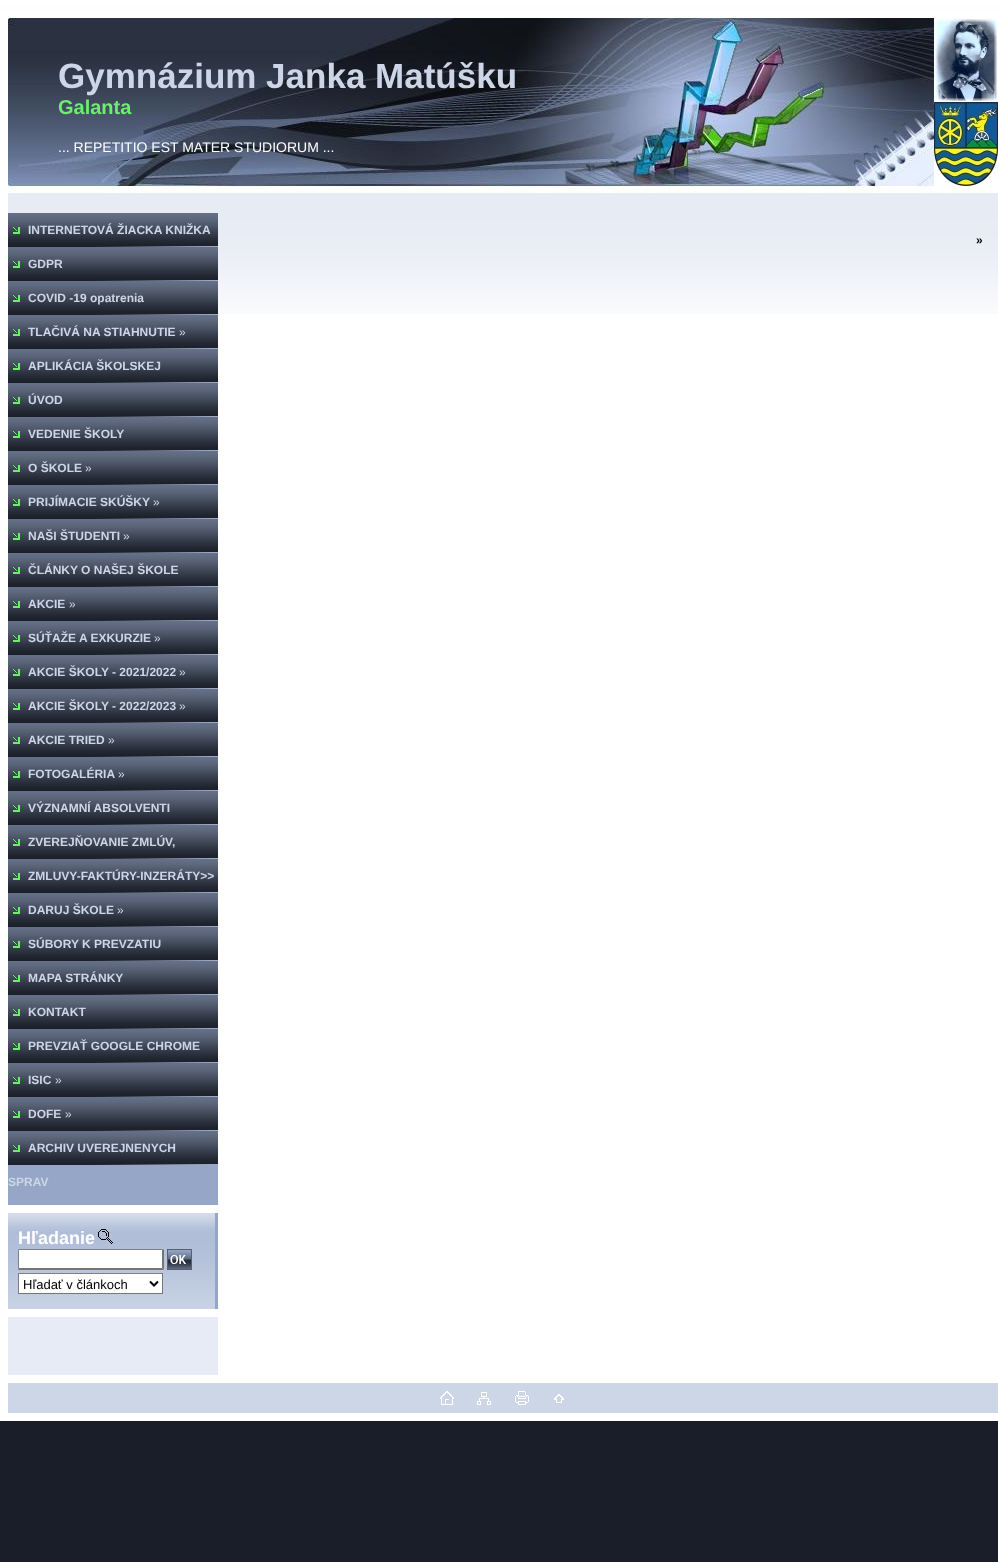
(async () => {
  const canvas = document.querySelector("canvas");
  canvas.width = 998;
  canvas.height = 1562;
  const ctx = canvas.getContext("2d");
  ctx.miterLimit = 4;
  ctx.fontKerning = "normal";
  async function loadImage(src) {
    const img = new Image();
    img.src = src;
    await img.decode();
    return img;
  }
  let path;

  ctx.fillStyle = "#1a1e28";
  ctx.fillRect(0, 0, 998, 1562);
  ctx.drawImage(await loadImage("img/1.png"), 0, 0, 998, 10);
  ctx.fillStyle = "#ffffff";
  ctx.fillRect(0, 10, 998, 1411);
  ctx.drawImage(await loadImage("img/2.png"), 8, 18, 990, 175);
  ctx.drawImage(await loadImage("img/3.png"), 8, 193, 990, 121);
  ctx.drawImage(await loadImage("img/4.png"), 8, 213, 210, 34);
  ctx.drawImage(await loadImage("img/4.png"), 8, 247, 210, 34);
  ctx.drawImage(await loadImage("img/4.png"), 8, 281, 210, 34);
  ctx.drawImage(await loadImage("img/4.png"), 8, 315, 210, 34);
  ctx.drawImage(await loadImage("img/4.png"), 8, 349, 210, 34);
  ctx.drawImage(await loadImage("img/4.png"), 8, 383, 210, 34);
  ctx.drawImage(await loadImage("img/4.png"), 8, 417, 210, 34);
  ctx.drawImage(await loadImage("img/4.png"), 8, 451, 210, 34);
  ctx.drawImage(await loadImage("img/4.png"), 8, 485, 210, 34);
  ctx.drawImage(await loadImage("img/4.png"), 8, 519, 210, 34);
  ctx.drawImage(await loadImage("img/4.png"), 8, 553, 210, 34);
  ctx.drawImage(await loadImage("img/4.png"), 8, 587, 210, 34);
  ctx.drawImage(await loadImage("img/4.png"), 8, 621, 210, 34);
  ctx.drawImage(await loadImage("img/4.png"), 8, 655, 210, 34);
  ctx.drawImage(await loadImage("img/4.png"), 8, 689, 210, 34);
  ctx.drawImage(await loadImage("img/4.png"), 8, 723, 210, 34);
  ctx.drawImage(await loadImage("img/4.png"), 8, 757, 210, 34);
  ctx.drawImage(await loadImage("img/4.png"), 8, 791, 210, 34);
  ctx.drawImage(await loadImage("img/4.png"), 8, 825, 210, 34);
  ctx.drawImage(await loadImage("img/4.png"), 8, 859, 210, 34);
  ctx.drawImage(await loadImage("img/4.png"), 8, 893, 210, 34);
  ctx.drawImage(await loadImage("img/4.png"), 8, 927, 210, 34);
  ctx.drawImage(await loadImage("img/4.png"), 8, 961, 210, 34);
  ctx.drawImage(await loadImage("img/4.png"), 8, 995, 210, 34);
  ctx.drawImage(await loadImage("img/4.png"), 8, 1029, 210, 34);
  ctx.drawImage(await loadImage("img/4.png"), 8, 1063, 210, 34);
  ctx.drawImage(await loadImage("img/4.png"), 8, 1097, 210, 34);
  ctx.drawImage(await loadImage("img/4.png"), 8, 1131, 210, 34);
  ctx.fillStyle = "#95a6c7";
  ctx.fillRect(8, 1165, 210, 40);
  ctx.drawImage(await loadImage("img/5.png"), 8, 1213, 210, 96);
  ctx.drawImage(await loadImage("img/6.png"), 98, 1229, 15, 15);
  ctx.fillStyle = "#ffffff";
  ctx.fillRect(18, 1249, 146, 21);
  ctx.fillStyle = "#808080";
  path = new Path2D("M18 1249H164L162 1250H19Z");
  ctx.fill(path);
  ctx.fillStyle = "#767676";
  path = new Path2D("M164 1249V1270L162 1268V1250Z");
  ctx.fill(path);
  path = new Path2D("M164 1270H18L19 1268H162Z");
  ctx.fill(path);
  ctx.fillStyle = "#808080";
  path = new Path2D("M18 1270V1249L19 1250V1268Z");
  ctx.fill(path);
  ctx.drawImage(await loadImage("img/7.png"), 167, 1249, 25, 21);
  for (const [x, y, w, h, color] of [
    [19, 1274, 143, 19, "#ffffff"],
    [18, 1273, 145, 1, "#808080"],
    [162, 1273, 1, 21, "#767676"],
    [18, 1293, 145, 1, "#767676"],
    [18, 1273, 1, 21, "#808080"],
  ]) {
    ctx.fillStyle = color;
    ctx.fillRect(x, y, w, h);
  }
  path = new Path2D("M150 1281.5L154 1285.5L158 1281.5");
  ctx.strokeStyle = "#000000";
  ctx.lineWidth = 2;
  ctx.stroke(path);
  ctx.fillStyle = "#e6ebf5";
  ctx.fillRect(8, 1317, 210, 58);
  ctx.fillStyle = "#cdd6e7";
  ctx.fillRect(8, 1383, 990, 30);
  ctx.drawImage(await loadImage("img/8.png"), 440, 1391, 14, 14);
  ctx.drawImage(await loadImage("img/9.png"), 477, 1392, 14, 13);
  ctx.drawImage(await loadImage("img/10.png"), 515, 1391, 14, 14);
  ctx.drawImage(await loadImage("img/11.png"), 554, 1394, 10, 9);
  ctx.font = "bold 35px Liberation Sans";
  ctx.fillText("Gymnázium Janka Matúšku", 58, 88);
  ctx.font = "bold 20px Liberation Sans";
  ctx.fillStyle = "#6bef6d";
  ctx.fillText("Galanta", 58, 114);
  ctx.font = "14px Liberation Sans";
  ctx.fillStyle = "#ffffff";
  ctx.fillText("... REPETITIO EST MATER STUDIORUM ...", 58, 152);
  ctx.font = "bold 12px Liberation Sans";
  ctx.fillStyle = "#cdd6e7";
  for (const [text, x, y] of [
    ["INTERNETOVÁ ŽIACKA KNIŽKA", 28, 234],
    ["GDPR", 28, 268],
    ["COVID -19 opatrenia", 28, 302],
    ["TLAČIVÁ NA STIAHNUTIE", 28, 336],
  ]) {
    ctx.fillText(text, x, y);
  }
  ctx.font = "12px Liberation Sans";
  ctx.fillText("»", 179, 336);
  ctx.font = "bold 12px Liberation Sans";
  for (const [text, x, y] of [
    ["APLIKÁCIA ŠKOLSKEJ", 28, 370],
    ["ÚVOD", 28, 404],
    ["VEDENIE ŠKOLY", 28, 438],
    ["O ŠKOLE", 28, 472],
  ]) {
    ctx.fillText(text, x, y);
  }
  ctx.font = "12px Liberation Sans";
  ctx.fillText("»", 85, 472);
  ctx.font = "bold 12px Liberation Sans";
  ctx.fillText("PRIJÍMACIE SKÚŠKY", 28, 506);
  ctx.font = "12px Liberation Sans";
  ctx.fillText("»", 153, 506);
  ctx.font = "bold 12px Liberation Sans";
  ctx.fillText("NAŠI ŠTUDENTI", 28, 540);
  ctx.font = "12px Liberation Sans";
  ctx.fillText("»", 123, 540);
  ctx.font = "bold 12px Liberation Sans";
  ctx.fillText("ČLÁNKY O NAŠEJ ŠKOLE", 28, 574);
  ctx.fillText("AKCIE", 28, 608);
  ctx.font = "12px Liberation Sans";
  ctx.fillText("»", 69, 608);
  ctx.font = "bold 12px Liberation Sans";
  ctx.fillText("SÚŤAŽE A EXKURZIE", 28, 642);
  ctx.font = "12px Liberation Sans";
  ctx.fillText("»", 154, 642);
  ctx.font = "bold 12px Liberation Sans";
  ctx.fillText("AKCIE ŠKOLY - 2021/2022", 28, 676);
  ctx.font = "12px Liberation Sans";
  ctx.fillText("»", 179, 676);
  ctx.font = "bold 12px Liberation Sans";
  ctx.fillText("AKCIE ŠKOLY - 2022/2023", 28, 710);
  ctx.font = "12px Liberation Sans";
  ctx.fillText("»", 179, 710);
  ctx.font = "bold 12px Liberation Sans";
  ctx.fillText("AKCIE TRIED", 28, 744);
  ctx.font = "12px Liberation Sans";
  ctx.fillText("»", 108, 744);
  ctx.font = "bold 12px Liberation Sans";
  ctx.fillText("FOTOGALÉRIA", 28, 778);
  ctx.font = "12px Liberation Sans";
  ctx.fillText("»", 118, 778);
  ctx.font = "bold 12px Liberation Sans";
  for (const [text, x, y] of [
    ["VÝZNAMNÍ ABSOLVENTI", 28, 812],
    ["ZVEREJŇOVANIE ZMLÚV,", 28, 846],
    ["ZMLUVY-FAKTÚRY-INZERÁTY>>", 28, 880],
    ["DARUJ ŠKOLE", 28, 914],
  ]) {
    ctx.fillText(text, x, y);
  }
  ctx.font = "12px Liberation Sans";
  ctx.fillText("»", 117, 914);
  ctx.font = "bold 12px Liberation Sans";
  for (const [text, x, y] of [
    ["SÚBORY K PREVZATIU", 28, 948],
    ["MAPA STRÁNKY", 28, 982],
    ["KONTAKT", 28, 1016],
    ["PREVZIAŤ GOOGLE CHROME", 28, 1050],
    ["ISIC", 28, 1084],
  ]) {
    ctx.fillText(text, x, y);
  }
  ctx.font = "12px Liberation Sans";
  ctx.fillText("»", 55, 1084);
  ctx.font = "bold 12px Liberation Sans";
  ctx.fillText("DOFE", 28, 1118);
  ctx.font = "12px Liberation Sans";
  ctx.fillText("»", 65, 1118);
  ctx.font = "bold 12px Liberation Sans";
  ctx.fillText("ARCHIV UVEREJNENYCH", 28, 1152);
  ctx.fillText("SPRAV", 8, 1186);
  ctx.font = "bold 18px Liberation Sans";
  ctx.fillStyle = "#ffffff";
  ctx.fillText("Hľadanie", 18, 1244);
  ctx.font = "13px Liberation Sans";
  ctx.fillStyle = "#000000";
  ctx.fillText("Hľadať v článkoch", 23, 1289);
  ctx.font = "bold 12px Liberation Sans";
  ctx.fillText("»", 976, 244);
})();
